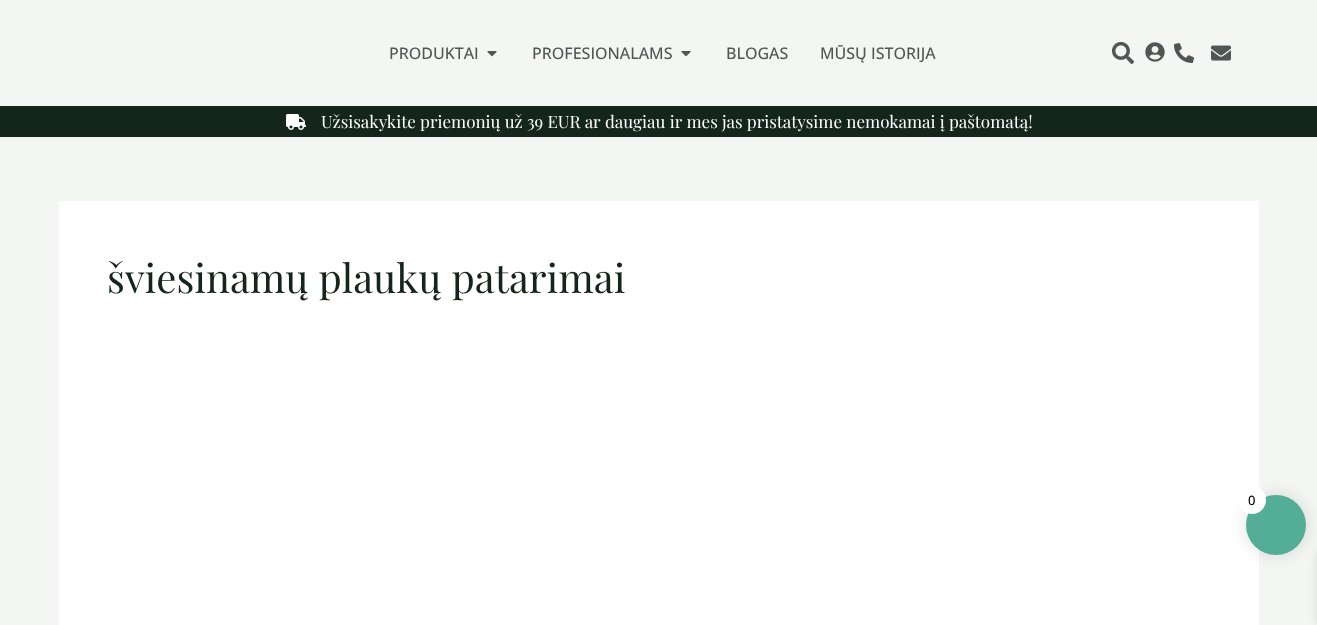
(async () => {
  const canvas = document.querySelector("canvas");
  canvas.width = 1317;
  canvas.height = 625;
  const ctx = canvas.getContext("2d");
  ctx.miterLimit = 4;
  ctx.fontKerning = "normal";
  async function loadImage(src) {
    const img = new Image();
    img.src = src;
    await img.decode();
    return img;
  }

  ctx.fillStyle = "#f3f6f3";
  ctx.fillRect(0, 0, 1317, 625);
  ctx.drawImage(await loadImage("img/1.png"), 487, 51, 10, 6);
  ctx.drawImage(await loadImage("img/1.png"), 681, 51, 10, 6);
  ctx.drawImage(await loadImage("img/2.png"), 1112, 42, 22, 22);
  ctx.drawImage(await loadImage("img/3.png"), 1145, 42, 20, 20);
  ctx.drawImage(await loadImage("img/4.png"), 1174, 43, 20, 20);
  ctx.drawImage(await loadImage("img/5.png"), 1211, 45, 20, 16);
  ctx.fillStyle = "#14261c";
  ctx.fillRect(0, 106, 1317, 31);
  ctx.drawImage(await loadImage("img/6.png"), 286, 114, 20, 16);
  ctx.fillStyle = "#ffffff";
  ctx.fillRect(59, 201, 1200, 424);
  ctx.fillStyle = "rgba(0, 0, 0, 0.1)";
  ctx.filter = "blur(7.5px)";
  ctx.beginPath();
  ctx.roundRect(1244, 493, 64, 64, 32);
  ctx.fill();
  ctx.filter = "none";
  ctx.filter = "blur(5px)";
  ctx.beginPath();
  ctx.rect(1317, 551, 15, 73);
  ctx.fill();
  ctx.filter = "none";
  ctx.fillStyle = "#54ad97";
  ctx.beginPath();
  ctx.arc(1276, 525, 30, 0, Math.PI * 2);
  ctx.fill();
  ctx.fillStyle = "#ffffff";
  ctx.beginPath();
  ctx.arc(1252, 500, 14, 0, Math.PI * 2);
  ctx.fill();
  ctx.font = "500 16px Open Sans";
  ctx.fillStyle = "#4f5655";
  for (const [text, x, y] of [
    ["PRODUKTAI", 389, 59],
    ["PROFESIONALAMS", 532, 59],
    ["BLOGAS", 726, 59],
    ["MŪSŲ ISTORIJA", 820, 59],
  ]) {
    ctx.fillText(text, x, y);
  }
  ctx.font = "17px Playfair Display";
  ctx.fillStyle = "#ffffff";
  ctx.fillText("Užsisakykite priemonių už 39 EUR ar daugiau ir mes jas pristatysime nemokamai į paštomatą!", 321, 128);
  ctx.font = "40px Playfair Display";
  ctx.fillStyle = "#14261c";
  ctx.fillText("šviesinamų plaukų patarimai", 107, 293);
  ctx.font = "500 13px Open Sans";
  ctx.fillStyle = "#000000";
  ctx.fillText("0", 1248, 505);
})();
